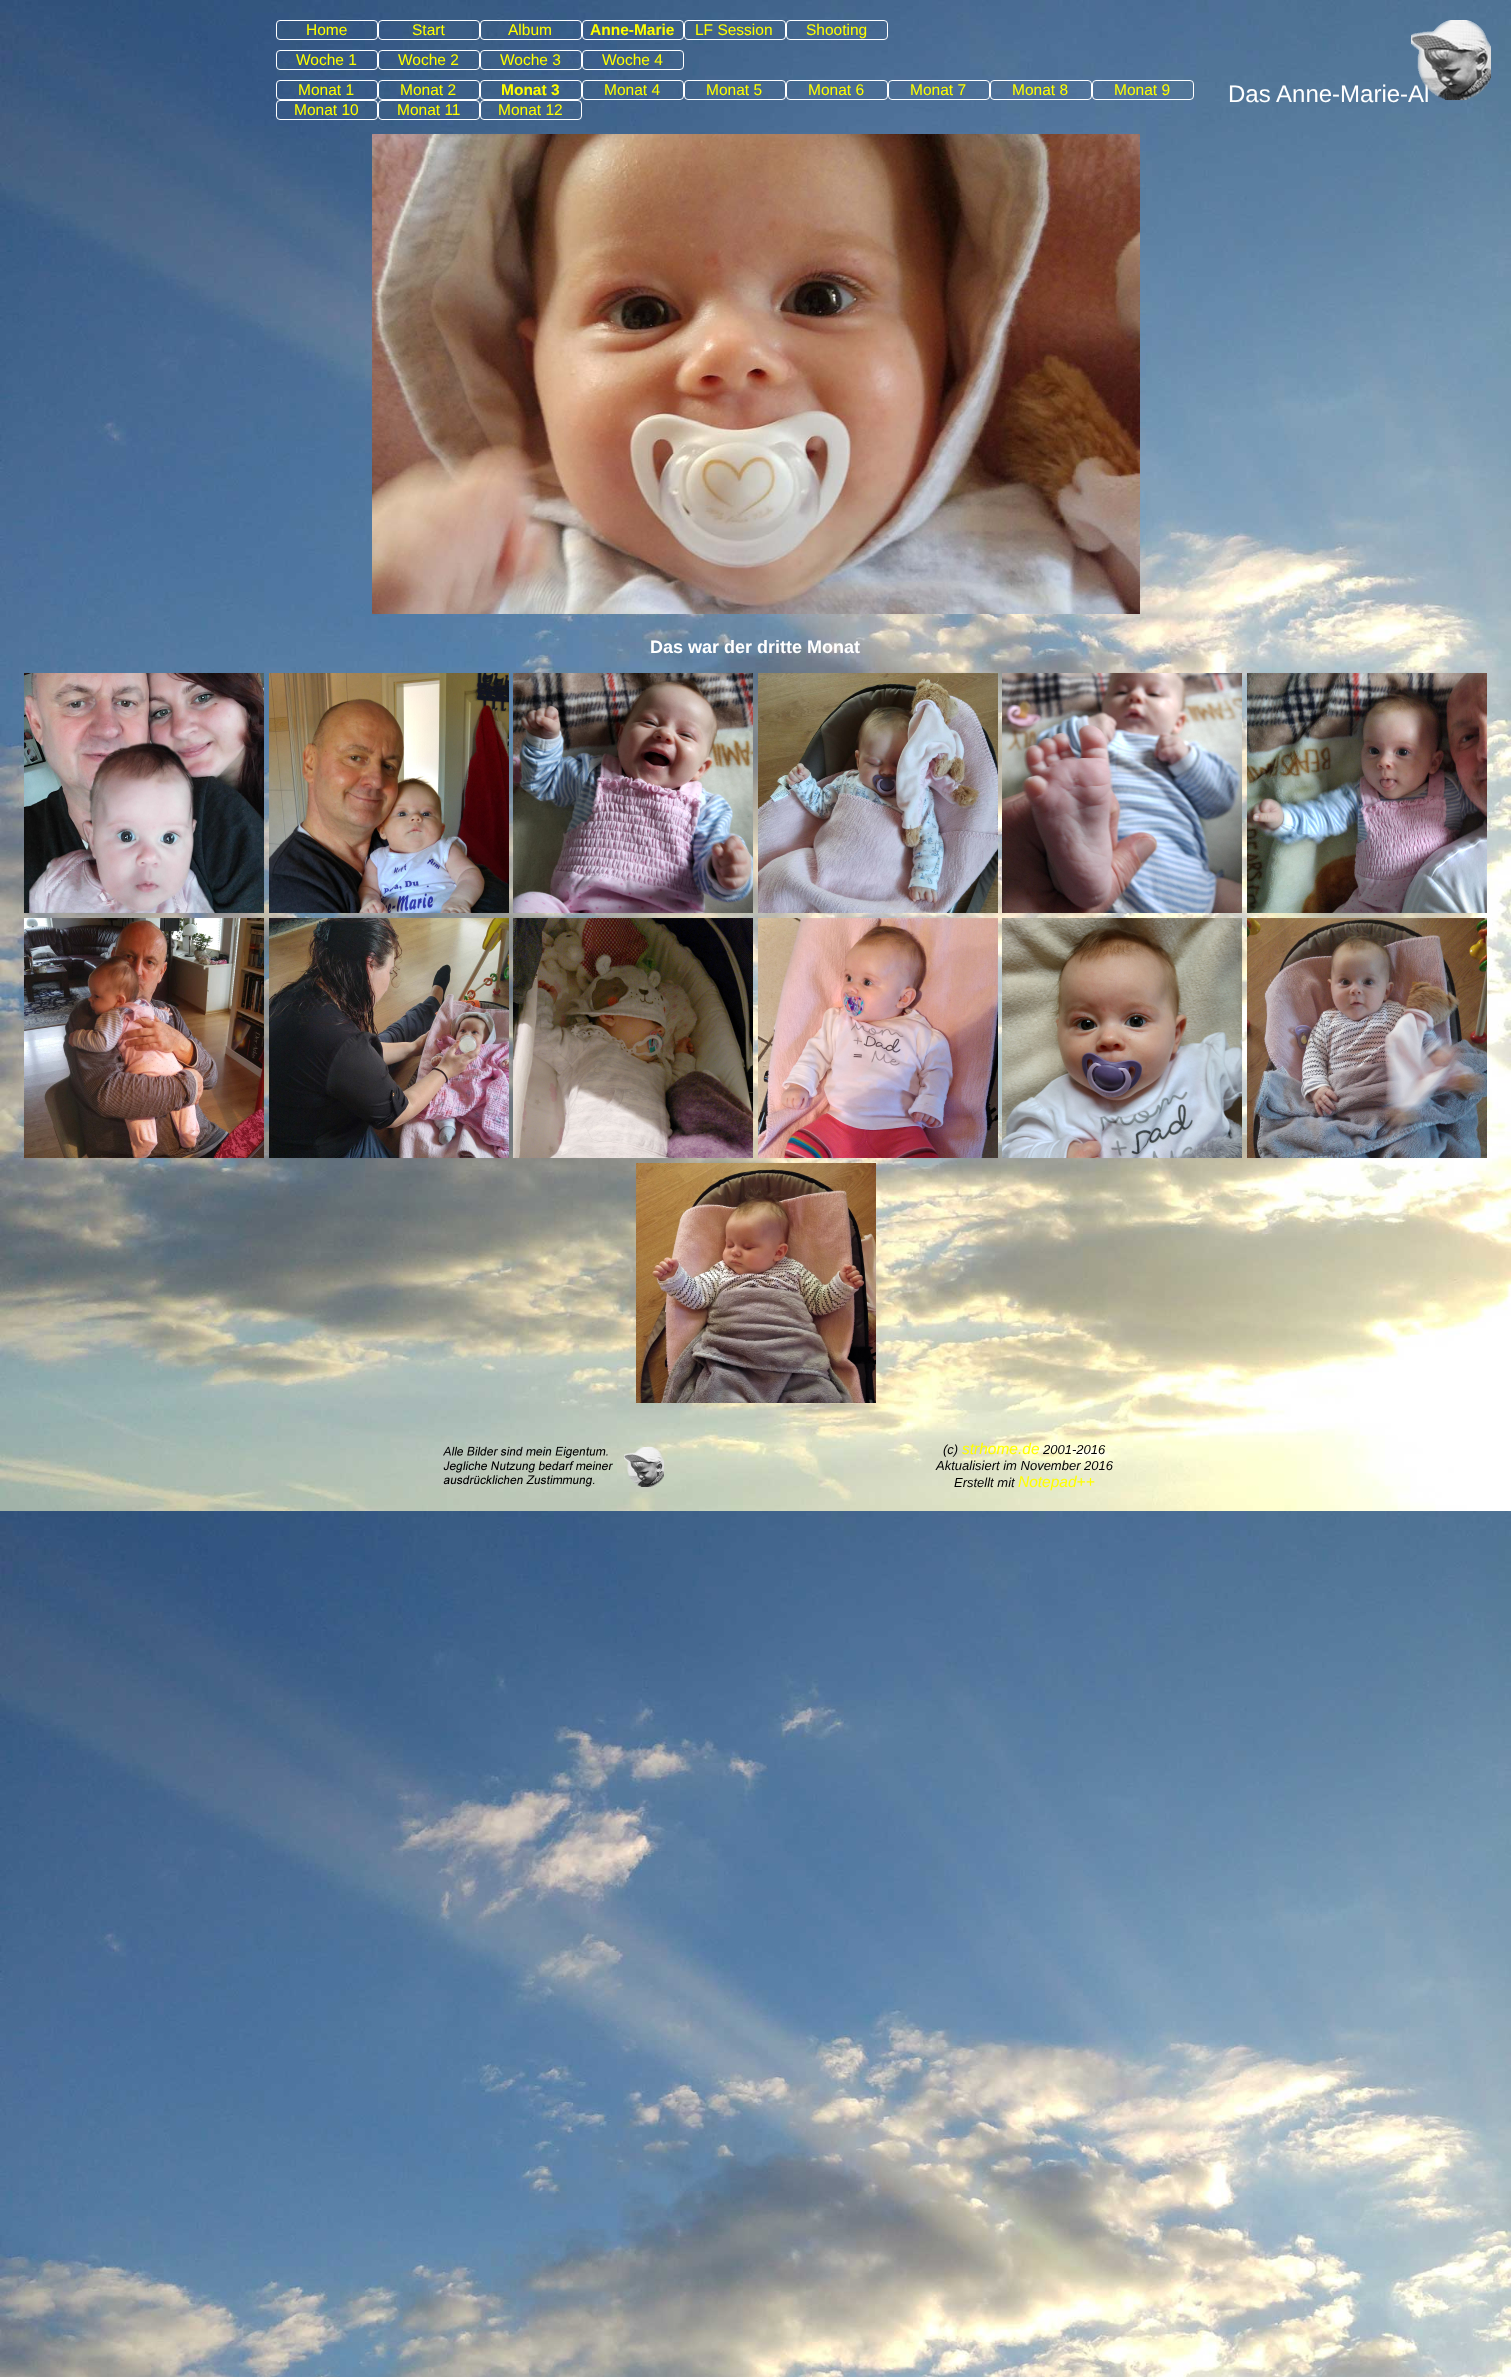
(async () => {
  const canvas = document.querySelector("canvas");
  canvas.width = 1511;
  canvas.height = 2377;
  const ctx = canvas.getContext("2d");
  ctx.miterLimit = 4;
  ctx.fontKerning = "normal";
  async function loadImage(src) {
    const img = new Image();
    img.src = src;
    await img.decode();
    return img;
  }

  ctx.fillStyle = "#ffffff";
  ctx.fillRect(0, 0, 1511, 2377);
  ctx.drawImage(await loadImage("img/1.png"), 0, 0, 1511, 2377);
  ctx.beginPath();
  ctx.roundRect(276.5, 20.5, 101, 19, 3.5);
  ctx.strokeStyle = "#ffffff";
  ctx.stroke();
  ctx.beginPath();
  ctx.roundRect(378.5, 20.5, 101, 19, 3.5);
  ctx.stroke();
  ctx.beginPath();
  ctx.roundRect(480.5, 20.5, 101, 19, 3.5);
  ctx.stroke();
  ctx.beginPath();
  ctx.roundRect(582.5, 20.5, 101, 19, 3.5);
  ctx.stroke();
  ctx.beginPath();
  ctx.roundRect(684.5, 20.5, 101, 19, 3.5);
  ctx.stroke();
  ctx.beginPath();
  ctx.roundRect(786.5, 20.5, 101, 19, 3.5);
  ctx.stroke();
  ctx.beginPath();
  ctx.roundRect(276.5, 50.5, 101, 19, 3.5);
  ctx.stroke();
  ctx.beginPath();
  ctx.roundRect(378.5, 50.5, 101, 19, 3.5);
  ctx.stroke();
  ctx.beginPath();
  ctx.roundRect(480.5, 50.5, 101, 19, 3.5);
  ctx.stroke();
  ctx.beginPath();
  ctx.roundRect(582.5, 50.5, 101, 19, 3.5);
  ctx.stroke();
  ctx.beginPath();
  ctx.roundRect(276.5, 80.5, 101, 19, 3.5);
  ctx.stroke();
  ctx.beginPath();
  ctx.roundRect(378.5, 80.5, 101, 19, 3.5);
  ctx.stroke();
  ctx.beginPath();
  ctx.roundRect(480.5, 80.5, 101, 19, 3.5);
  ctx.stroke();
  ctx.beginPath();
  ctx.roundRect(582.5, 80.5, 101, 19, 3.5);
  ctx.stroke();
  ctx.beginPath();
  ctx.roundRect(684.5, 80.5, 101, 19, 3.5);
  ctx.stroke();
  ctx.beginPath();
  ctx.roundRect(786.5, 80.5, 101, 19, 3.5);
  ctx.stroke();
  ctx.beginPath();
  ctx.roundRect(888.5, 80.5, 101, 19, 3.5);
  ctx.stroke();
  ctx.beginPath();
  ctx.roundRect(990.5, 80.5, 101, 19, 3.5);
  ctx.stroke();
  ctx.beginPath();
  ctx.roundRect(1092.5, 80.5, 101, 19, 3.5);
  ctx.stroke();
  ctx.beginPath();
  ctx.roundRect(276.5, 100.5, 101, 19, 3.5);
  ctx.stroke();
  ctx.beginPath();
  ctx.roundRect(378.5, 100.5, 101, 19, 3.5);
  ctx.stroke();
  ctx.beginPath();
  ctx.roundRect(480.5, 100.5, 101, 19, 3.5);
  ctx.stroke();
  ctx.drawImage(await loadImage("img/2.png"), 372, 134, 768, 480);
  ctx.drawImage(await loadImage("img/4.png"), 24, 673, 240, 240);
  ctx.drawImage(await loadImage("img/5.png"), 269, 673, 240, 240);
  ctx.drawImage(await loadImage("img/6.png"), 513, 673, 240, 240);
  ctx.drawImage(await loadImage("img/7.png"), 758, 673, 240, 240);
  ctx.drawImage(await loadImage("img/8.png"), 1002, 673, 240, 240);
  ctx.drawImage(await loadImage("img/9.png"), 1247, 673, 240, 240);
  ctx.drawImage(await loadImage("img/10.png"), 24, 918, 240, 240);
  ctx.drawImage(await loadImage("img/11.png"), 269, 918, 240, 240);
  ctx.drawImage(await loadImage("img/12.png"), 513, 918, 240, 240);
  ctx.drawImage(await loadImage("img/13.png"), 758, 918, 240, 240);
  ctx.drawImage(await loadImage("img/14.png"), 1002, 918, 240, 240);
  ctx.drawImage(await loadImage("img/15.png"), 1247, 918, 240, 240);
  ctx.drawImage(await loadImage("img/16.png"), 636, 1163, 240, 240);
  ctx.drawImage(await loadImage("img/17.png"), 443, 1446, 221, 41);
  ctx.font = "15.5px Liberation Sans";
  ctx.fillStyle = "#ffff00";
  for (const [text, x, y] of [
    ["Home", 306, 35],
    ["Start", 412, 35],
    ["Album", 508, 35],
  ]) {
    ctx.fillText(text, x, y);
  }
  ctx.font = "bold 15.5px Liberation Sans";
  ctx.fillText("Anne-Marie", 590, 35);
  ctx.font = "15.5px Liberation Sans";
  for (const [text, x, y] of [
    ["LF Session", 695, 35],
    ["Shooting", 806, 35],
    ["Woche 1", 296, 65],
    ["Woche 2", 398, 65],
    ["Woche 3", 500, 65],
    ["Woche 4", 602, 65],
    ["Monat 1", 298, 95],
    ["Monat 2", 400, 95],
  ]) {
    ctx.fillText(text, x, y);
  }
  ctx.font = "bold 15.5px Liberation Sans";
  ctx.fillText("Monat 3", 501, 95);
  ctx.font = "15.5px Liberation Sans";
  for (const [text, x, y] of [
    ["Monat 4", 604, 95],
    ["Monat 5", 706, 95],
    ["Monat 6", 808, 95],
    ["Monat 7", 910, 95],
    ["Monat 8", 1012, 95],
    ["Monat 9", 1114, 95],
    ["Monat 10", 294, 115],
    ["Monat 11", 397, 115],
    ["Monat 12", 498, 115],
  ]) {
    ctx.fillText(text, x, y);
  }
  ctx.font = "24px Liberation Sans";
  ctx.fillStyle = "#ffffff";
  ctx.fillText("Das Anne-Marie-Al", 1228, 102);
  ctx.drawImage(await loadImage("img/3.png"), 1411, 20, 80, 80);
  ctx.font = "bold 18px Liberation Sans";
  ctx.fillText("Das war der dritte Monat", 650, 653);
  ctx.font = "italic 13px Liberation Sans";
  ctx.fillStyle = "#000000";
  ctx.fillText("(c)", 943, 1454);
  ctx.font = "italic 15.5px Liberation Sans";
  ctx.fillStyle = "#ffff00";
  ctx.fillText("strhome.de", 962, 1454);
  ctx.font = "italic 13px Liberation Sans";
  ctx.fillStyle = "#000000";
  for (const [text, x, y] of [
    ["2001-2016", 1043, 1454],
    ["Aktualisiert im November 2016", 936, 1470],
    ["Erstellt mit", 954, 1487],
  ]) {
    ctx.fillText(text, x, y);
  }
  ctx.font = "italic 15.5px Liberation Sans";
  ctx.fillStyle = "#ffff00";
  ctx.fillText("Notepad++", 1018, 1487);
})();
